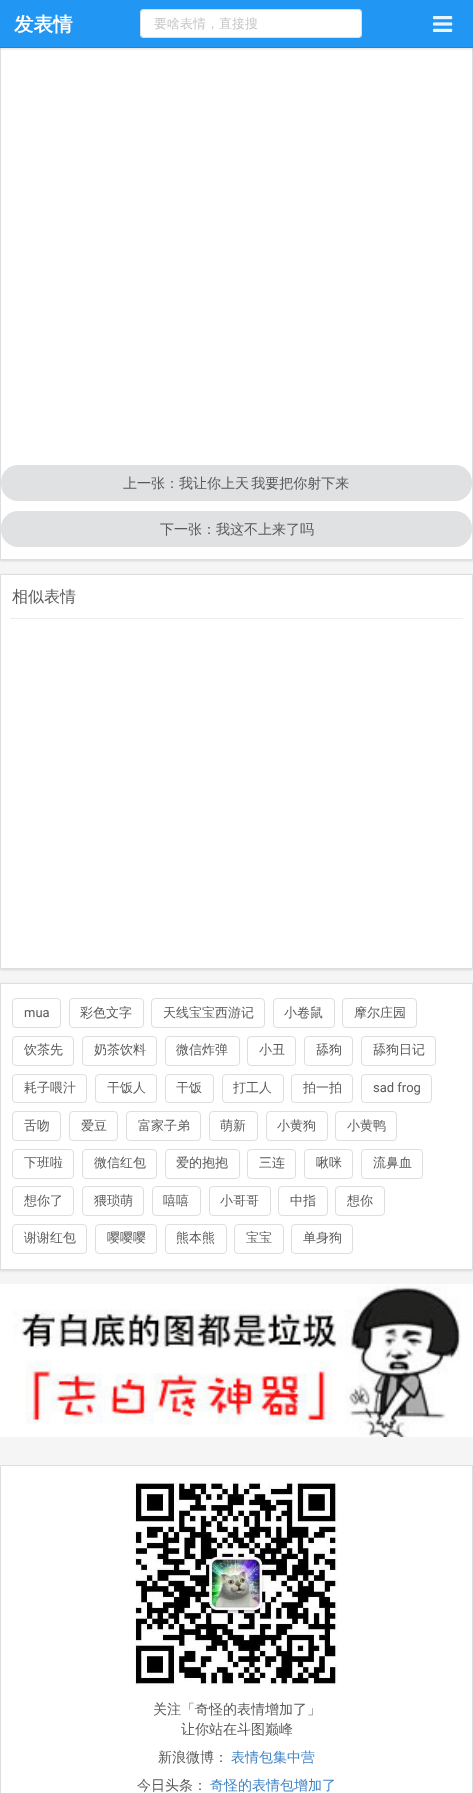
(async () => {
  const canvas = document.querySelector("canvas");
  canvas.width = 473;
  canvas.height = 1793;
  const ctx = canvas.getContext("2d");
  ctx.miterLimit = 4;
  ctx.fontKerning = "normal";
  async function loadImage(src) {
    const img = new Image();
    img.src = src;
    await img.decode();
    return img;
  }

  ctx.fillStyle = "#f5f5f5";
  ctx.fillRect(0, 0, 473, 1793);
  ctx.fillStyle = "rgba(34, 36, 38, 0.15)";
  ctx.filter = "blur(1px)";
  ctx.beginPath();
  ctx.rect(0, -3, 473, 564);
  ctx.fill();
  ctx.filter = "none";
  ctx.fillStyle = "#ffffff";
  ctx.fillRect(1, 48, 471, 511);
  ctx.strokeStyle = "#dedede";
  ctx.strokeRect(0.5, -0.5, 472, 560);
  ctx.fillStyle = "rgba(34, 36, 38, 0.15)";
  ctx.filter = "blur(1px)";
  ctx.beginPath();
  ctx.rect(0, 1, 473, 48);
  ctx.fill();
  ctx.filter = "none";
  ctx.fillStyle = "#2196f3";
  ctx.fillRect(0, 0, 473, 47);
  ctx.fillStyle = "#2185d4";
  ctx.fillRect(0, 47, 473, 1);
  ctx.fillStyle = "#ffffff";
  ctx.beginPath();
  ctx.roundRect(140, 9, 222, 29, 4);
  ctx.fill();
  ctx.beginPath();
  ctx.roundRect(140.5, 9.5, 221, 28, 3.5);
  ctx.strokeStyle = "rgba(34, 36, 38, 0.15)";
  ctx.stroke();
  ctx.drawImage(await loadImage("img/1.png"), 433, 16, 20, 16);
  ctx.fillStyle = "#e0e1e2";
  ctx.beginPath();
  ctx.roundRect(1, 465, 471, 36, 17);
  ctx.fill();
  ctx.beginPath();
  ctx.roundRect(1, 511, 471, 36, 17);
  ctx.fill();
  ctx.fillStyle = "rgba(34, 36, 38, 0.15)";
  ctx.filter = "blur(1px)";
  ctx.beginPath();
  ctx.rect(0, 575, 473, 395);
  ctx.fill();
  ctx.filter = "none";
  ctx.fillStyle = "#ffffff";
  ctx.beginPath();
  ctx.rect(0.5, 574.5, 472, 394);
  ctx.fill();
  ctx.strokeStyle = "#dedede";
  ctx.stroke();
  ctx.fillStyle = "#eeeeee";
  ctx.fillRect(10, 618, 453, 1);
  ctx.fillStyle = "rgba(34, 36, 38, 0.15)";
  ctx.filter = "blur(1px)";
  ctx.beginPath();
  ctx.rect(0, 984, 473, 287);
  ctx.fill();
  ctx.filter = "none";
  ctx.fillStyle = "#ffffff";
  ctx.beginPath();
  ctx.rect(0.5, 983.5, 472, 286);
  ctx.fill();
  ctx.stroke();
  ctx.beginPath();
  ctx.roundRect(12.5, 998.5, 48, 29, 3.5);
  ctx.stroke();
  ctx.beginPath();
  ctx.roundRect(69.5, 998.5, 74, 29, 3.5);
  ctx.stroke();
  ctx.beginPath();
  ctx.roundRect(151.5, 998.5, 113, 29, 3.5);
  ctx.stroke();
  ctx.beginPath();
  ctx.roundRect(273.5, 998.5, 61, 29, 3.5);
  ctx.stroke();
  ctx.beginPath();
  ctx.roundRect(342.5, 998.5, 74, 29, 3.5);
  ctx.stroke();
  ctx.beginPath();
  ctx.roundRect(12.5, 1036.5, 61, 29, 3.5);
  ctx.stroke();
  ctx.beginPath();
  ctx.roundRect(82.5, 1036.5, 74, 29, 3.5);
  ctx.stroke();
  ctx.beginPath();
  ctx.roundRect(165.5, 1036.5, 74, 29, 3.5);
  ctx.stroke();
  ctx.beginPath();
  ctx.roundRect(247.5, 1036.5, 48, 29, 3.5);
  ctx.stroke();
  ctx.beginPath();
  ctx.roundRect(304.5, 1036.5, 48, 29, 3.5);
  ctx.stroke();
  ctx.beginPath();
  ctx.roundRect(361.5, 1036.5, 74, 29, 3.5);
  ctx.stroke();
  ctx.beginPath();
  ctx.roundRect(12.5, 1074.5, 74, 28, 3.5);
  ctx.stroke();
  ctx.beginPath();
  ctx.roundRect(95.5, 1074.5, 61, 28, 3.5);
  ctx.stroke();
  ctx.beginPath();
  ctx.roundRect(165.5, 1074.5, 48, 28, 3.5);
  ctx.stroke();
  ctx.beginPath();
  ctx.roundRect(222.5, 1074.5, 61, 28, 3.5);
  ctx.stroke();
  ctx.beginPath();
  ctx.roundRect(291.5, 1074.5, 61, 28, 3.5);
  ctx.stroke();
  ctx.beginPath();
  ctx.roundRect(361.5, 1074.5, 70, 28, 3.5);
  ctx.stroke();
  ctx.beginPath();
  ctx.roundRect(12.5, 1111.5, 48, 29, 3.5);
  ctx.stroke();
  ctx.beginPath();
  ctx.roundRect(69.5, 1111.5, 48, 29, 3.5);
  ctx.stroke();
  ctx.beginPath();
  ctx.roundRect(126.5, 1111.5, 74, 29, 3.5);
  ctx.stroke();
  ctx.beginPath();
  ctx.roundRect(209.5, 1111.5, 48, 29, 3.5);
  ctx.stroke();
  ctx.beginPath();
  ctx.roundRect(266.5, 1111.5, 61, 29, 3.5);
  ctx.stroke();
  ctx.beginPath();
  ctx.roundRect(335.5, 1111.5, 61, 29, 3.5);
  ctx.stroke();
  ctx.beginPath();
  ctx.roundRect(12.5, 1149.5, 61, 29, 3.5);
  ctx.stroke();
  ctx.beginPath();
  ctx.roundRect(82.5, 1149.5, 74, 29, 3.5);
  ctx.stroke();
  ctx.beginPath();
  ctx.roundRect(165.5, 1149.5, 74, 29, 3.5);
  ctx.stroke();
  ctx.beginPath();
  ctx.roundRect(247.5, 1149.5, 48, 29, 3.5);
  ctx.stroke();
  ctx.beginPath();
  ctx.roundRect(304.5, 1149.5, 48, 29, 3.5);
  ctx.stroke();
  ctx.beginPath();
  ctx.roundRect(361.5, 1149.5, 61, 29, 3.5);
  ctx.stroke();
  ctx.beginPath();
  ctx.roundRect(12.5, 1186.5, 61, 29, 3.5);
  ctx.stroke();
  ctx.beginPath();
  ctx.roundRect(82.5, 1186.5, 61, 29, 3.5);
  ctx.stroke();
  ctx.beginPath();
  ctx.roundRect(152.5, 1186.5, 48, 29, 3.5);
  ctx.stroke();
  ctx.beginPath();
  ctx.roundRect(209.5, 1186.5, 61, 29, 3.5);
  ctx.stroke();
  ctx.beginPath();
  ctx.roundRect(278.5, 1186.5, 49, 29, 3.5);
  ctx.stroke();
  ctx.beginPath();
  ctx.roundRect(335.5, 1186.5, 49, 29, 3.5);
  ctx.stroke();
  ctx.beginPath();
  ctx.roundRect(12.5, 1224.5, 74, 29, 3.5);
  ctx.stroke();
  ctx.beginPath();
  ctx.roundRect(95.5, 1224.5, 61, 29, 3.5);
  ctx.stroke();
  ctx.beginPath();
  ctx.roundRect(165.5, 1224.5, 61, 29, 3.5);
  ctx.stroke();
  ctx.beginPath();
  ctx.roundRect(234.5, 1224.5, 49, 29, 3.5);
  ctx.stroke();
  ctx.beginPath();
  ctx.roundRect(291.5, 1224.5, 61, 29, 3.5);
  ctx.stroke();
  ctx.drawImage(await loadImage("img/2.png"), 0, 1284, 473, 153);
  ctx.beginPath();
  ctx.rect(0.5, 1465.5, 472, 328);
  ctx.fill();
  ctx.stroke();
  ctx.drawImage(await loadImage("img/3.png"), 135, 1481, 203, 204);
  ctx.font = "bold 19.5px WenQuanYi Zen Hei";
  ctx.fillText("发表情", 14, 31);
  ctx.font = "500 13px WenQuanYi Zen Hei";
  ctx.fillStyle = "#c7c7c7";
  ctx.fillText("要啥表情，直接搜", 154, 28);
  ctx.wordSpacing = "-2px";
  ctx.font = "500 14px WenQuanYi Zen Hei";
  ctx.fillStyle = "#5a5a5a";
  ctx.fillText("上一张：我让你上天 我要把你射下来", 123, 488);
  ctx.wordSpacing = "0px";
  ctx.fillText("下一张：我这不上来了吗", 160, 534);
  ctx.font = "500 16px WenQuanYi Zen Hei";
  ctx.fillText("相似表情", 12, 602);
  ctx.font = "13px Roboto";
  ctx.fillText("mua", 24, 1017);
  ctx.font = "500 13px WenQuanYi Zen Hei";
  for (const [text, x, y] of [
    ["彩色文字", 80, 1017],
    ["天线宝宝西游记", 163, 1017],
    ["小卷鼠", 284, 1017],
    ["摩尔庄园", 354, 1017],
    ["饮茶先", 24, 1054],
    ["奶茶饮料", 94, 1054],
    ["微信炸弹", 176, 1054],
    ["小丑", 259, 1054],
    ["舔狗", 316, 1054],
    ["舔狗日记", 373, 1054],
    ["耗子喂汁", 24, 1092],
    ["干饭人", 107, 1092],
    ["干饭", 176, 1092],
    ["打工人", 233, 1092],
    ["拍一拍", 303, 1092],
  ]) {
    ctx.fillText(text, x, y);
  }
  ctx.font = "13px Roboto";
  ctx.fillText("sad frog", 373, 1092);
  ctx.font = "500 13px WenQuanYi Zen Hei";
  for (const [text, x, y] of [
    ["舌吻", 24, 1130],
    ["爱豆", 81, 1130],
    ["富家子弟", 138, 1130],
    ["萌新", 220, 1130],
    ["小黄狗", 277, 1130],
    ["小黄鸭", 347, 1130],
    ["下班啦", 24, 1167],
    ["微信红包", 94, 1167],
    ["爱的抱抱", 176, 1167],
    ["三连", 259, 1167],
    ["啾咪", 316, 1167],
    ["流鼻血", 373, 1167],
    ["想你了", 24, 1205],
    ["猥琐萌", 94, 1205],
    ["嘻嘻", 163, 1205],
    ["小哥哥", 220, 1205],
    ["中指", 290, 1205],
    ["想你", 347, 1205],
    ["谢谢红包", 24, 1242],
    ["嘤嘤嘤", 107, 1242],
    ["熊本熊", 176, 1242],
    ["宝宝", 246, 1242],
    ["单身狗", 303, 1242],
  ]) {
    ctx.fillText(text, x, y);
  }
  ctx.font = "500 14px WenQuanYi Zen Hei";
  for (const [text, x, y] of [
    ["关注「奇怪的表情增加了」", 153, 1714],
    ["让你站在斗图巅峰", 181, 1734],
    ["新浪微博：", 158, 1762],
  ]) {
    ctx.fillText(text, x, y);
  }
  ctx.fillStyle = "#4183c4";
  ctx.fillText("表情包集中营", 231, 1762);
  ctx.fillStyle = "#5a5a5a";
  ctx.fillText("今日头条：", 137, 1790);
  ctx.fillStyle = "#4183c4";
  ctx.fillText("奇怪的表情包增加了", 210, 1790);
})();
